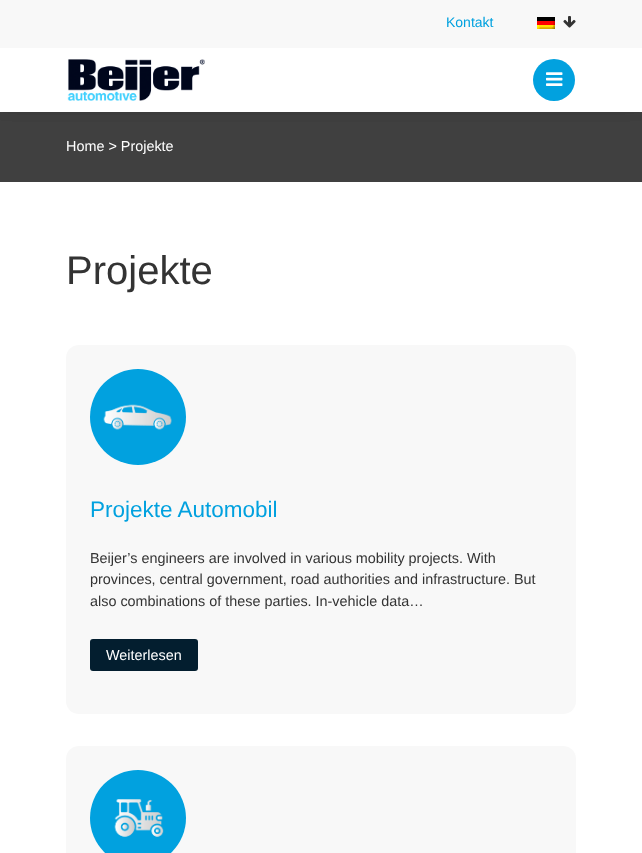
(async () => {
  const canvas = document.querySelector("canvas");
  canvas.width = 642;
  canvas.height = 853;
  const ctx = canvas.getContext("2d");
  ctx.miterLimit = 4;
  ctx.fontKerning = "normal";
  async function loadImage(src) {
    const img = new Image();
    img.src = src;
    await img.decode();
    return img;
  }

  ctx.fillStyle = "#ffffff";
  ctx.fillRect(0, 0, 642, 853);
  ctx.fillStyle = "#404040";
  ctx.fillRect(0, 112, 642, 70);
  ctx.fillStyle = "#000000";
  ctx.filter = "blur(15px)";
  ctx.beginPath();
  ctx.rect(0, 22, 642, 64);
  ctx.fill();
  ctx.filter = "none";
  ctx.filter = "blur(15px)";
  ctx.beginPath();
  ctx.rect(0, 22, 642, 64);
  ctx.fill();
  ctx.filter = "none";
  ctx.fillStyle = "#ffffff";
  ctx.fillRect(0, 48, 642, 64);
  ctx.drawImage(await loadImage("img/1.png"), 67, 59, 138, 42);
  ctx.fillStyle = "#01a1df";
  ctx.beginPath();
  ctx.arc(554, 80, 21, 0, Math.PI * 2);
  ctx.fill();
  ctx.drawImage(await loadImage("img/2.png"), 546, 72, 17, 14);
  ctx.fillStyle = "#f8f8f8";
  ctx.fillRect(0, 0, 642, 48);
  ctx.drawImage(await loadImage("img/3.png"), 537, 17, 18, 12);
  ctx.drawImage(await loadImage("img/4.png"), 563, 16, 13, 12);
  ctx.beginPath();
  ctx.roundRect(66, 345, 510, 369, 13);
  ctx.fill();
  ctx.fillStyle = "#01a1df";
  ctx.beginPath();
  ctx.arc(138, 417, 48, 0, Math.PI * 2);
  ctx.fill();
  ctx.drawImage(await loadImage("img/5.png"), 103, 404, 69, 26);
  ctx.fillStyle = "#031e2f";
  ctx.beginPath();
  ctx.roundRect(90, 639, 108, 32, 3);
  ctx.fill();
  ctx.fillStyle = "#f8f8f8";
  ctx.beginPath();
  ctx.roundRect(66, 746, 510, 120, 13);
  ctx.fill();
  ctx.fillStyle = "#01a1df";
  ctx.beginPath();
  ctx.arc(138, 818, 48, 0, Math.PI * 2);
  ctx.fill();
  ctx.drawImage(await loadImage("img/6.png"), 114, 799, 50, 38);
  ctx.font = "14px Liberation Sans";
  ctx.fillText("Kontakt", 446, 27);
  ctx.font = "14.4px Liberation Sans";
  ctx.fillStyle = "#ffffff";
  ctx.fillText("Home > Projekte", 66, 151);
  ctx.font = "40px Liberation Sans";
  ctx.fillStyle = "#333333";
  ctx.fillText("Projekte", 66, 284);
  ctx.font = "22.5px Liberation Sans";
  ctx.fillStyle = "#01a1df";
  ctx.fillText("Projekte Automobil", 90, 517);
  ctx.font = "14.4px Liberation Sans";
  ctx.fillStyle = "#333333";
  for (const [text, x, y] of [
    ["Beijer’s engineers are involved in various mobility projects. With", 90, 563],
    ["provinces, central government, road authorities and infrastructure. But", 90, 584],
    ["also combinations of these parties. In-vehicle data…", 90, 606],
  ]) {
    ctx.fillText(text, x, y);
  }
  ctx.fillStyle = "#ffffff";
  ctx.fillText("Weiterlesen", 106, 660);
})();
